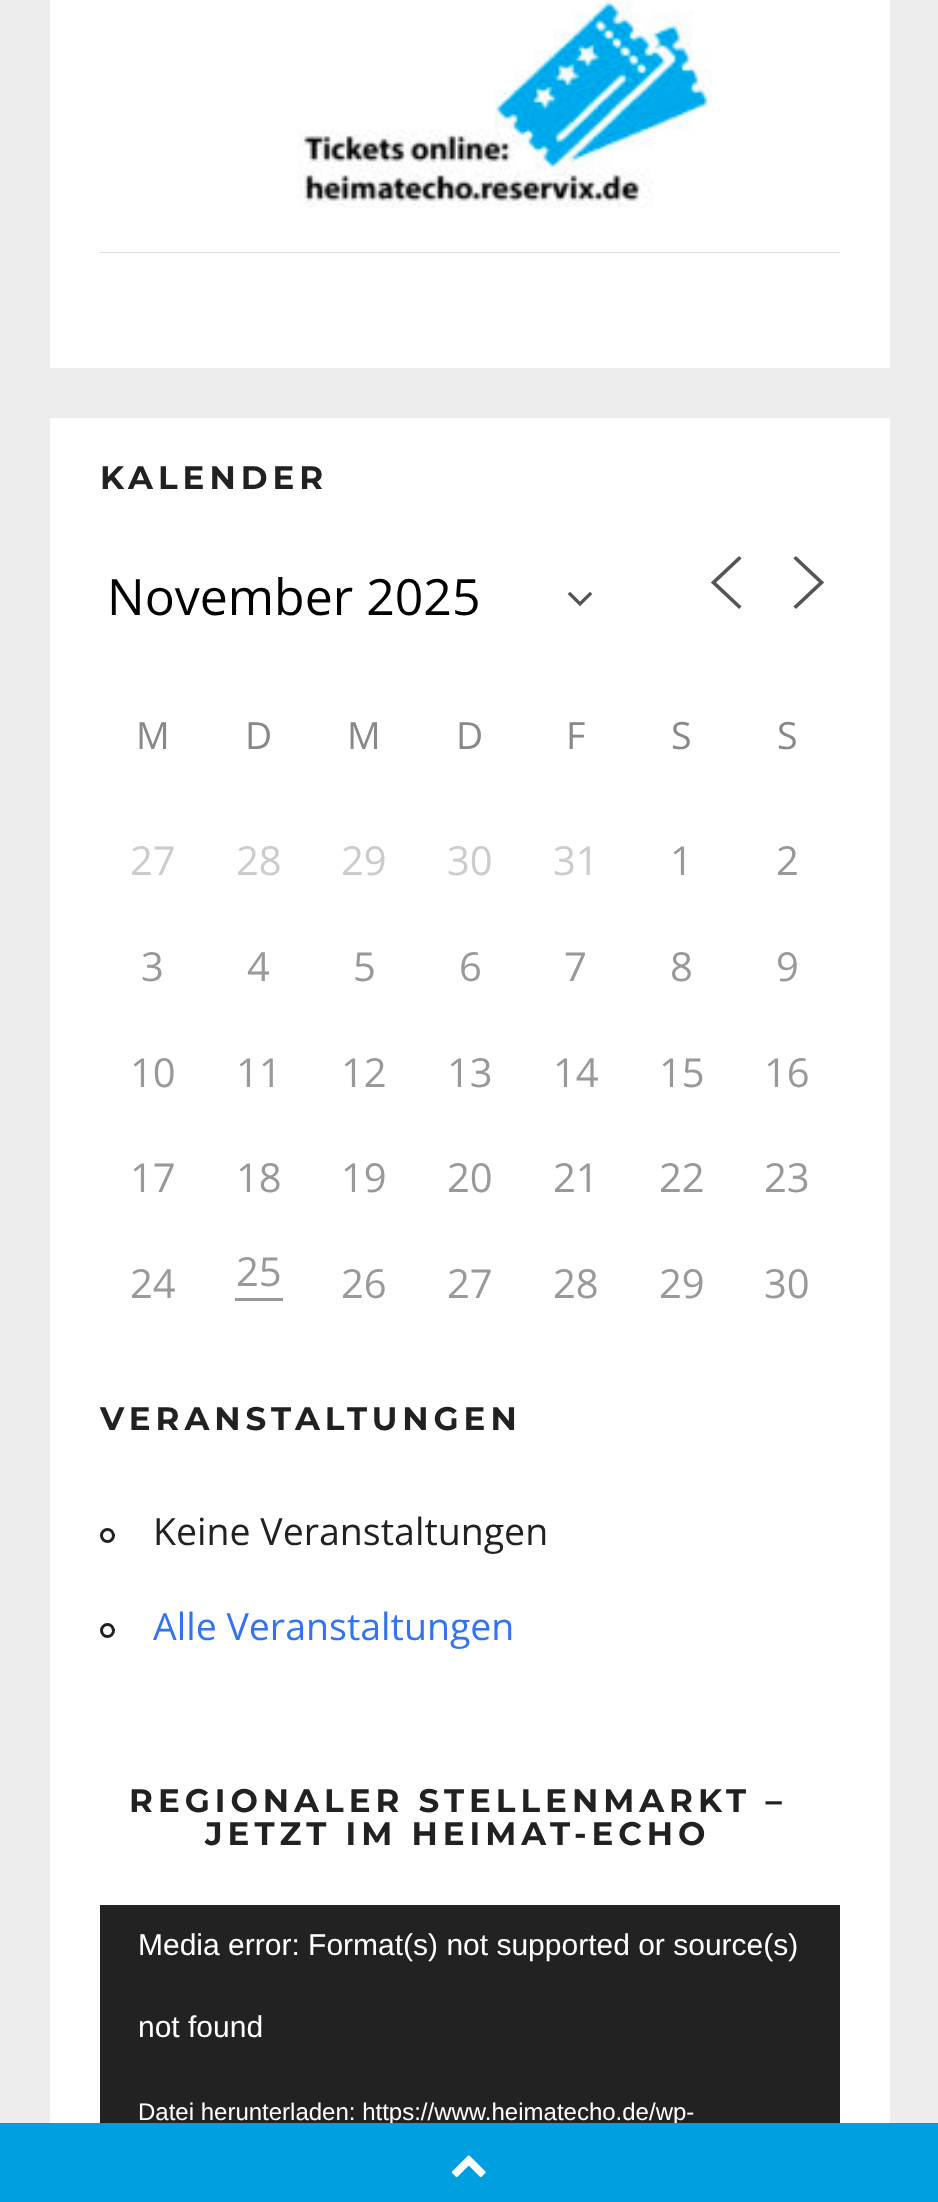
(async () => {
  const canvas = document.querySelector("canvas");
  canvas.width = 938;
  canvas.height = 2202;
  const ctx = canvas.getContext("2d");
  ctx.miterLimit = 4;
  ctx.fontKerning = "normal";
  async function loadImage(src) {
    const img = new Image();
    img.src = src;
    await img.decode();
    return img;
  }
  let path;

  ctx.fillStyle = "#ededed";
  ctx.fillRect(0, 0, 938, 2202);
  ctx.fillStyle = "#ffffff";
  ctx.fillRect(50, 0, 840, 368);
  ctx.fillStyle = "#dddddd";
  ctx.fillRect(100, 252, 740, 1);
  ctx.drawImage(await loadImage("img/1.png"), 100, 0, 740, 252);
  ctx.fillStyle = "#ffffff";
  ctx.fillRect(50, 418, 840, 1705);
  path = new Path2D("M570 594L580 604L590 594");
  ctx.strokeStyle = "#555555";
  ctx.lineWidth = 3.3;
  ctx.lineCap = "square";
  ctx.stroke(path);
  path = new Path2D("M739 606.5L713.5 582.5L739 558.5");
  ctx.lineWidth = 3.7;
  ctx.stroke(path);
  path = new Path2D("M796 606.5L821.5 582.5L796 558.5");
  ctx.stroke(path);
  ctx.fillStyle = "#999999";
  ctx.fillRect(235, 1298, 48, 3);
  ctx.beginPath();
  ctx.arc(107.5, 1535.5, 6, 0, Math.PI * 2);
  ctx.strokeStyle = "#212121";
  ctx.lineWidth = 3;
  ctx.stroke();
  ctx.beginPath();
  ctx.arc(107.5, 1630.5, 6, 0, Math.PI * 2);
  ctx.stroke();
  ctx.fillStyle = "#222222";
  ctx.fillRect(100, 1905, 740, 218);
  ctx.letterSpacing = "5px";
  ctx.font = "bold 32.5px Montserrat";
  ctx.fillStyle = "#212121";
  ctx.fillText("KALENDER", 100, 489);
  ctx.letterSpacing = "0px";
  ctx.font = "50px Open Sans";
  ctx.fillStyle = "#000000";
  ctx.fillText("November 2025", 107, 615);
  ctx.font = "37.5px Open Sans";
  ctx.fillStyle = "#888888";
  for (const [text, x, y] of [
    ["M", 136, 749],
    ["D", 245, 749],
    ["M", 347, 749],
    ["D", 456, 749],
    ["F", 566, 749],
    ["S", 671, 749],
    ["S", 777, 749],
  ]) {
    ctx.fillText(text, x, y);
  }
  ctx.font = "40px Open Sans";
  ctx.fillStyle = "#cccccc";
  for (const [text, x, y] of [
    ["27", 130, 875],
    ["28", 236, 875],
    ["29", 341, 875],
    ["30", 447, 875],
    ["31", 553, 875],
  ]) {
    ctx.fillText(text, x, y);
  }
  ctx.fillStyle = "#999999";
  for (const [text, x, y] of [
    ["1", 670, 875],
    ["2", 776, 875],
    ["3", 141, 981],
    ["4", 247, 981],
    ["5", 353, 981],
    ["6", 459, 981],
    ["7", 564, 981],
    ["8", 670, 981],
    ["9", 776, 981],
    ["10", 130, 1087],
    ["11", 236, 1087],
    ["12", 341, 1087],
    ["13", 447, 1087],
    ["14", 553, 1087],
    ["15", 659, 1087],
    ["16", 764, 1087],
    ["17", 130, 1192],
    ["18", 236, 1192],
    ["19", 341, 1192],
    ["20", 447, 1192],
    ["21", 553, 1192],
    ["22", 659, 1192],
    ["23", 764, 1192],
    ["24", 130, 1298],
    ["25", 236, 1286],
    ["26", 341, 1298],
    ["27", 447, 1298],
    ["28", 553, 1298],
    ["29", 659, 1298],
    ["30", 764, 1298],
  ]) {
    ctx.fillText(text, x, y);
  }
  ctx.letterSpacing = "5px";
  ctx.font = "bold 32.5px Montserrat";
  ctx.fillStyle = "#212121";
  ctx.fillText("VERANSTALTUNGEN", 100, 1430);
  ctx.letterSpacing = "0px";
  ctx.font = "37.5px Open Sans";
  ctx.fillText("Keine Veranstaltungen", 153, 1545);
  ctx.fillStyle = "#3372f0";
  ctx.fillText("Alle Veranstaltungen", 153, 1640);
  ctx.letterSpacing = "5px";
  ctx.font = "bold 32.5px Montserrat";
  ctx.fillStyle = "#212121";
  ctx.fillText("REGIONALER STELLENMARKT –", 129, 1812);
  ctx.fillText("JETZT IM HEIMAT-ECHO", 205, 1845);
  ctx.letterSpacing = "0px";
  ctx.font = "30px Liberation Sans";
  ctx.fillStyle = "#ffffff";
  ctx.fillText("Media error: Format(s) not supported or source(s)", 138, 1955);
  ctx.fillText("not found", 138, 2037);
  ctx.font = "24px Liberation Sans";
  ctx.fillText("Datei herunterladen: https://www.heimatecho.de/wp-", 138, 2120);
  ctx.fillStyle = "#009fe0";
  ctx.fillRect(0, 2123, 938, 79);
  ctx.drawImage(await loadImage("img/2.png"), 451, 2155, 35, 22);
})();
